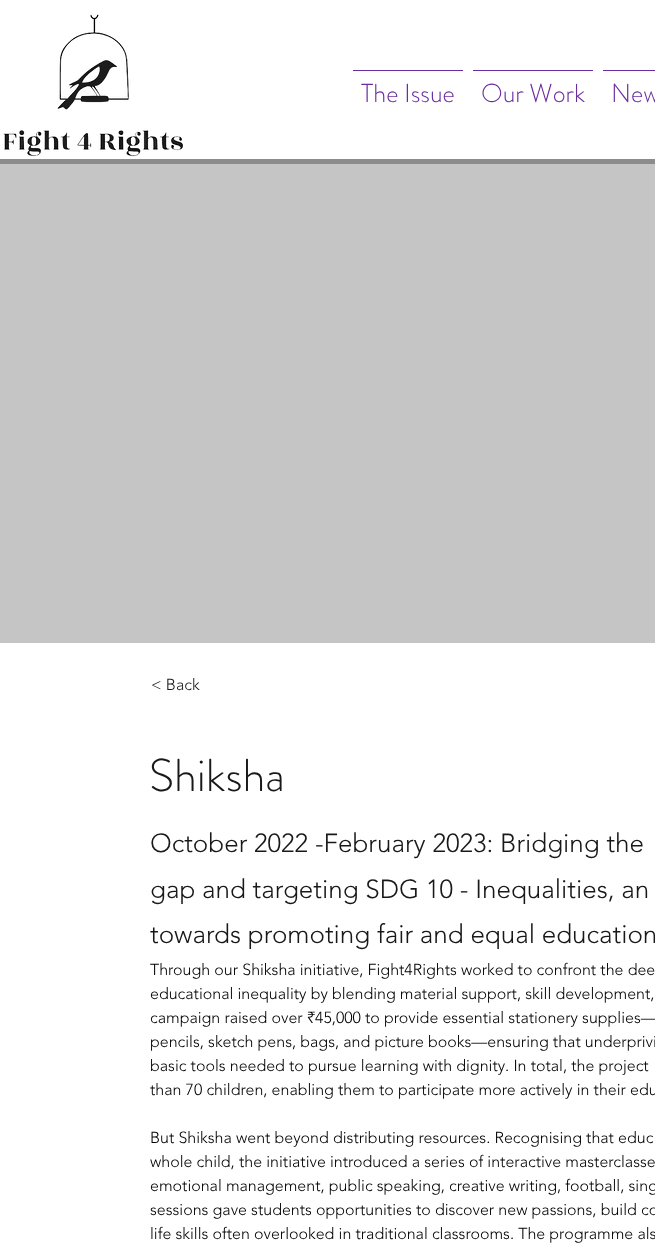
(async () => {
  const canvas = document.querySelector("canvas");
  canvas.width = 655;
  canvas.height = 1248;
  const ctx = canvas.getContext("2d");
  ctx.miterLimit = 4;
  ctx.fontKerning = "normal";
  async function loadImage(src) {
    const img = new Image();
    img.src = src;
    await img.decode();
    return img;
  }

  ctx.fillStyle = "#ffffff";
  ctx.fillRect(0, 0, 655, 1248);
  ctx.drawImage(await loadImage("img/1.png"), 3, 14, 180, 143);
  for (const [x, y, w, h, color] of [
    [353, 70, 110, 1, "#6b2ea0"],
    [473, 70, 120, 1, "#6b2ea0"],
    [603, 70, 52, 1, "#6b2ea0"],
    [0, 159, 655, 5, "#8c8c8c"],
    [0, 164, 655, 479, "#c5c5c5"],
  ]) {
    ctx.fillStyle = color;
    ctx.fillRect(x, y, w, h);
  }
  ctx.font = "300 26px 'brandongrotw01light'";
  ctx.fillStyle = "#6b2ea0";
  for (const [text, x, y] of [
    ["The Issue", 361, 102],
    ["Our Work", 481, 102],
    ["New", 611, 102],
  ]) {
    ctx.fillText(text, x, y);
  }
  ctx.font = "300 16px 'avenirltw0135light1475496'";
  ctx.fillStyle = "#181818";
  ctx.fillText("< Back", 151, 690);
  ctx.font = "300 46px 'brandongrotw01light'";
  ctx.fillText("Shiksha", 149, 791);
  ctx.font = "300 26px 'avenirltw0135light1475496'";
  for (const [text, x, y] of [
    ["October 2022 -February 2023: Bridging the", 150, 852],
    ["gap and targeting SDG 10 - Inequalities, an", 150, 898],
    ["towards promoting fair and equal education", 150, 943],
  ]) {
    ctx.fillText(text, x, y);
  }
  ctx.font = "300 16px 'avenirltw0135light1475496'";
  ctx.fillStyle = "#000000";
  for (const [text, x, y] of [
    ["Through our Shiksha initiative, Fight4Rights worked to confront the dee", 150, 975],
    ["educational inequality by blending material support, skill development,", 150, 999],
    ["campaign raised over ₹45,000 to provide essential stationery supplies—", 150, 1023],
    ["pencils, sketch pens, bags, and picture books—ensuring that underprivi", 150, 1047],
    ["basic tools needed to pursue learning with dignity. In total, the project", 150, 1071],
    ["than 70 children, enabling them to participate more actively in their edu", 150, 1095],
    ["But Shiksha went beyond distributing resources. Recognising that educ", 150, 1143],
    ["whole child, the initiative introduced a series of interactive masterclasse", 150, 1167],
    ["emotional management, public speaking, creative writing, football, sing", 150, 1191],
    ["sessions gave students opportunities to discover new passions, build co", 150, 1215],
    ["life skills often overlooked in traditional classrooms. The programme als", 150, 1239],
  ]) {
    ctx.fillText(text, x, y);
  }
})();
